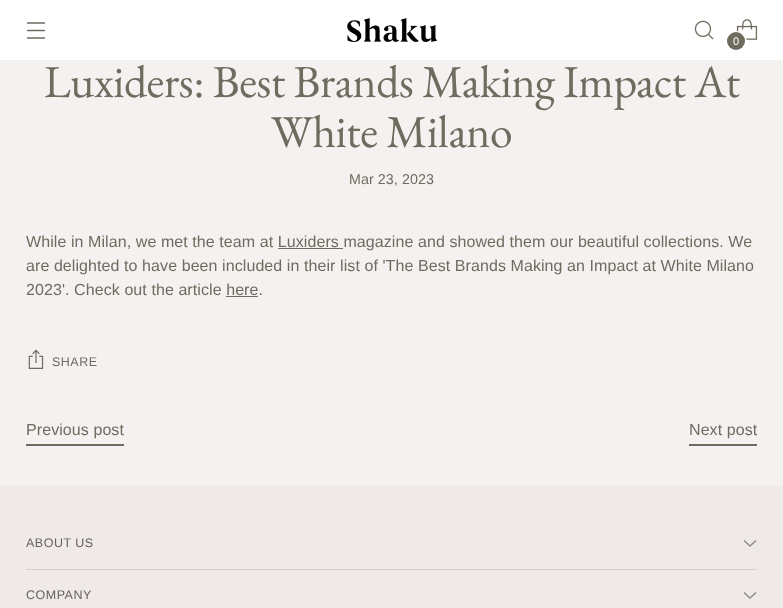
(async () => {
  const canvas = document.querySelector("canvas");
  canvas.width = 783;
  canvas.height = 608;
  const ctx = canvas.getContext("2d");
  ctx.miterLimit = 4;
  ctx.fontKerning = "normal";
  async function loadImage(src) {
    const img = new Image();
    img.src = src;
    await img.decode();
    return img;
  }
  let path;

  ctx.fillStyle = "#f4f2f1";
  ctx.fillRect(0, 0, 783, 608);
  ctx.fillStyle = "#ffffff";
  ctx.fillRect(0, 0, 783, 60);
  path = new Path2D("M27 30.5H45M27 23H45M27 38H45");
  ctx.strokeStyle = "#706b5f";
  ctx.lineWidth = 1.3;
  ctx.stroke(path);
  ctx.drawImage(await loadImage("img/1.png"), 347, 18, 90, 24);
  ctx.drawImage(await loadImage("img/2.png"), 694, 20, 20, 20);
  ctx.drawImage(await loadImage("img/3.png"), 736, 19, 22, 21);
  ctx.beginPath();
  ctx.arc(736.5, 41.5, 9.5, 0, Math.PI * 2);
  ctx.strokeStyle = "#ffffff";
  ctx.lineWidth = 2;
  ctx.stroke();
  ctx.fillStyle = "#706b5f";
  ctx.beginPath();
  ctx.arc(736, 41, 9, 0, Math.PI * 2);
  ctx.fill();
  ctx.fillRect(278, 248, 65, 1);
  ctx.fillRect(226, 296, 32, 1);
  ctx.drawImage(await loadImage("img/4.png"), 28, 349, 16, 20);
  for (const [x, y, w, h, color] of [
    [26, 444, 98, 2, "#706b5f"],
    [689, 444, 68, 2, "#706b5f"],
    [0, 486, 783, 122, "#efeae9"],
    [26, 569, 731, 1, "#d4cfcc"],
  ]) {
    ctx.fillStyle = color;
    ctx.fillRect(x, y, w, h);
  }
  path = new Path2D("M744 540.5L750 546L756 540.5M744 592.5L750 598L756 592.5");
  ctx.strokeStyle = "#918c84";
  ctx.lineWidth = 1.6;
  ctx.stroke(path);
  ctx.letterSpacing = "0.08px";
  ctx.font = "11px Arimo";
  ctx.fillStyle = "#ffffff";
  ctx.fillText("0", 733, 45);
  ctx.letterSpacing = "-0.45px";
  ctx.font = "45.75px EB Garamond";
  ctx.fillStyle = "#706b5f";
  ctx.fillText("Luxiders: Best Brands Making Impact At", 44, 97);
  ctx.fillText("White Milano", 271, 147);
  ctx.letterSpacing = "0.08px";
  ctx.font = "14.25px Arimo";
  ctx.fillText("Mar 23, 2023", 349, 184);
  ctx.font = "16px Arimo";
  for (const [text, x, y] of [
    ["While in Milan, we met the team at Luxiders magazine and showed them our beautiful collections. We", 26, 247],
    ["are delighted to have been included in their list of 'The Best Brands Making an Impact at White Milano", 26, 271],
    ["2023'. Check out the article here.", 26, 295],
  ]) {
    ctx.fillText(text, x, y);
  }
  ctx.letterSpacing = "0.5px";
  ctx.font = "12.5px Arimo";
  ctx.fillText("SHARE", 52, 366);
  ctx.letterSpacing = "0.08px";
  ctx.font = "16px Arimo";
  ctx.fillText("Previous post", 26, 435);
  ctx.fillText("Next post", 689, 435);
  ctx.letterSpacing = "0.5px";
  ctx.font = "12.5px Arimo";
  ctx.fillStyle = "#686359";
  ctx.fillText("ABOUT US", 26, 547);
  ctx.fillText("COMPANY", 26, 599);
})();
